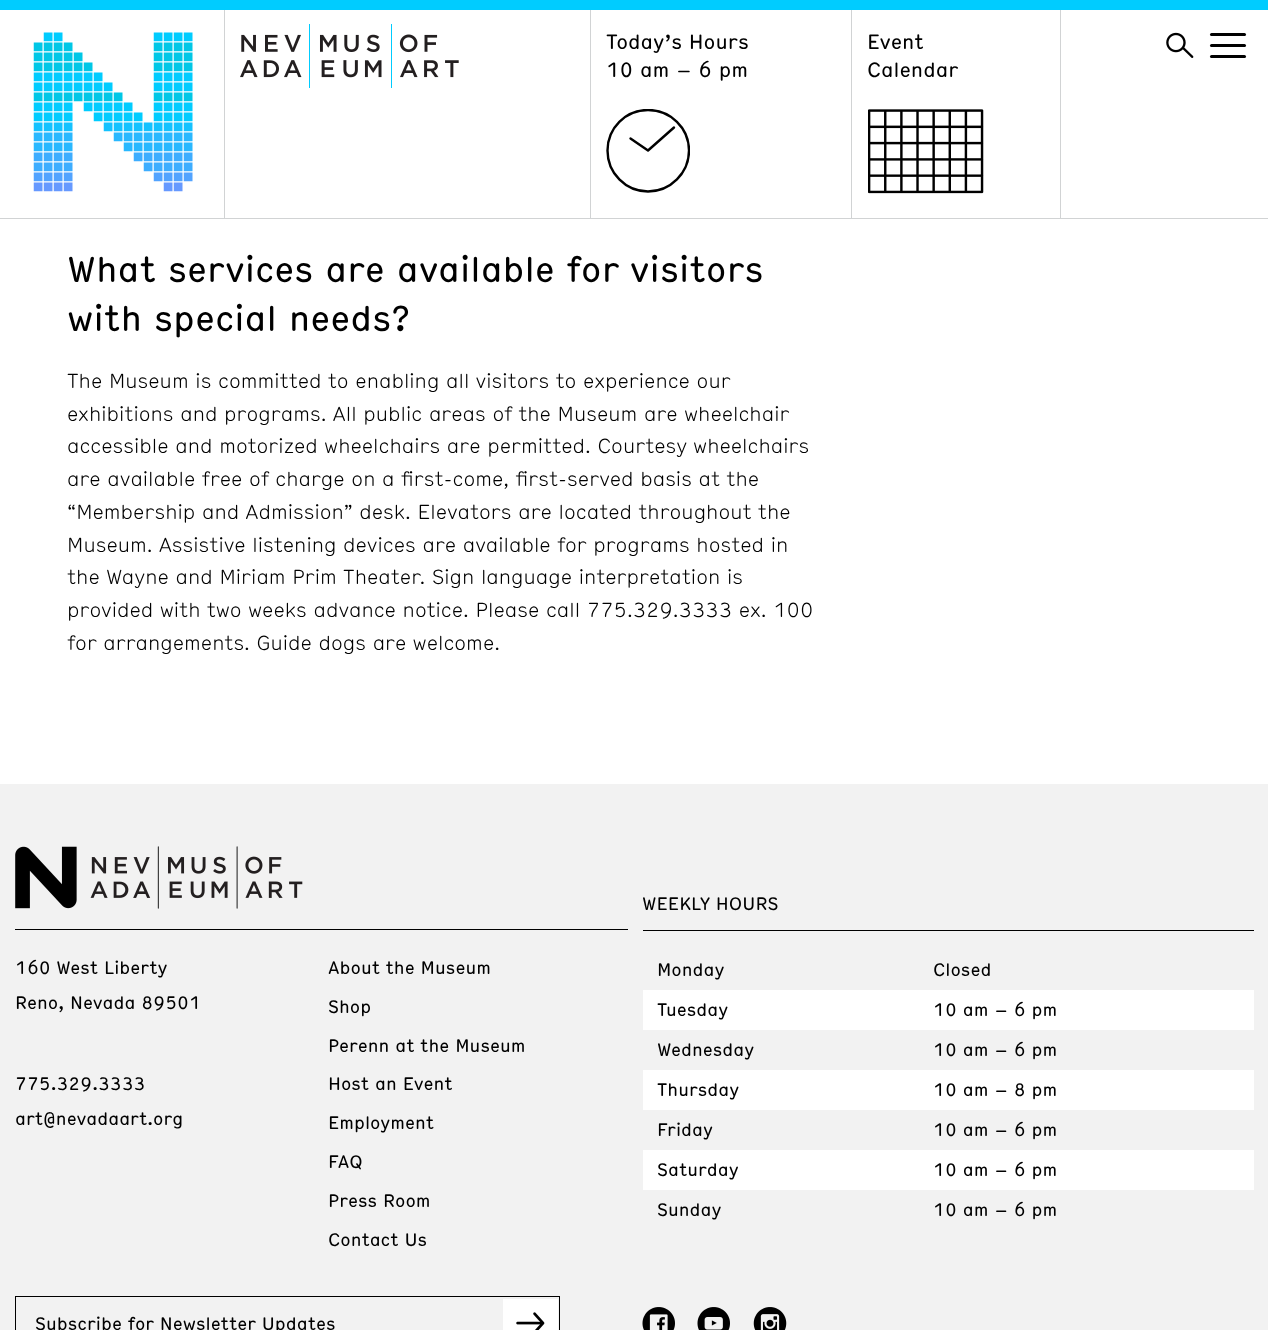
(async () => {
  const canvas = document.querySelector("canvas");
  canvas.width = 1268;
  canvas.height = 1330;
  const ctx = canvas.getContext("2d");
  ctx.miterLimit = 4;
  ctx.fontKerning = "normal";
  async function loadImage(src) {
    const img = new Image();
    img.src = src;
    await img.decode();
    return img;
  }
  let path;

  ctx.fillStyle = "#ffffff";
  ctx.fillRect(0, 0, 1268, 1330);
  ctx.fillStyle = "#00ccff";
  ctx.fillRect(0, 0, 1268, 10);
  ctx.fillStyle = "#d1d3d4";
  ctx.fillRect(0, 218, 1268, 1);
  ctx.drawImage(await loadImage("img/1.png"), 33, 32, 160, 160);
  ctx.fillRect(224, 10, 1, 208);
  ctx.drawImage(await loadImage("img/2.png"), 240, 24, 219, 64);
  ctx.fillRect(590, 10, 1, 208);
  path = new Path2D("M648 150.5L630.5 138.5M648 150.5L674 127.5");
  ctx.strokeStyle = "#000000";
  ctx.lineWidth = 2.4;
  ctx.lineCap = "round";
  ctx.lineJoin = "round";
  ctx.stroke(path);
  ctx.save();
  ctx.beginPath();
  ctx.rect(606, 109, 84, 84);
  ctx.clip();
  path = new Path2D("M648 191.5C670.5 191.5 689 173 689 150.5C689 128 670.5 110 648 110C625.5 110 607.5 128 607.5 150.5C607.5 173 625.5 191.5 648 191.5Z");
  ctx.lineCap = "butt";
  ctx.lineJoin = "miter";
  ctx.stroke(path);
  ctx.restore();
  ctx.fillRect(851, 10, 1, 208);
  ctx.drawImage(await loadImage("img/3.png"), 868, 109, 116, 85);
  ctx.fillRect(1060, 10, 1, 208);
  ctx.drawImage(await loadImage("img/4.png"), 1166, 32, 28, 26);
  ctx.fillStyle = "#000000";
  ctx.beginPath();
  ctx.roundRect(1210, 33, 36, 3, 1.5);
  ctx.fill();
  ctx.beginPath();
  ctx.roundRect(1210, 44, 36, 3, 1.5);
  ctx.fill();
  ctx.beginPath();
  ctx.roundRect(1210, 55, 36, 3, 1.5);
  ctx.fill();
  ctx.fillStyle = "#f2f2f2";
  ctx.fillRect(0, 784, 1268, 546);
  ctx.fillStyle = "#000000";
  ctx.fillRect(15, 929, 613, 1);
  ctx.drawImage(await loadImage("img/5.png"), 15, 846, 288, 63);
  ctx.lineWidth = 1;
  ctx.lineJoin = "miter";
  ctx.strokeRect(15.5, 1296.5, 544, 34);
  ctx.fillStyle = "#ffffff";
  ctx.fillRect(503, 1299, 55, 31);
  ctx.drawImage(await loadImage("img/6.png"), 516, 1312, 29, 18);
  ctx.drawImage(await loadImage("img/7.png"), 642, 1307, 33, 23);
  ctx.drawImage(await loadImage("img/8.png"), 697, 1307, 33, 23);
  ctx.drawImage(await loadImage("img/9.png"), 753, 1307, 34, 23);
  for (const [x, y, w, h, color] of [
    [643, 930, 611, 1, "#000000"],
    [643, 990, 611, 40, "#ffffff"],
    [643, 1070, 611, 40, "#ffffff"],
    [643, 1150, 611, 40, "#ffffff"],
  ]) {
    ctx.fillStyle = color;
    ctx.fillRect(x, y, w, h);
  }
  ctx.font = "20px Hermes";
  ctx.fillStyle = "#000000";
  for (const [text, x, y] of [
    ["Today’s Hours", 606, 49],
    ["10 am – 6 pm", 606, 77],
    ["Event", 867, 49],
    ["Calendar", 867, 77],
  ]) {
    ctx.fillText(text, x, y);
  }
  ctx.font = "35px Hermes";
  ctx.fillText("What services are available for visitors", 67, 282);
  ctx.fillText("with special needs?", 67, 331);
  ctx.font = "300 19.7px Hermes";
  for (const [text, x, y] of [
    ["The Museum is committed to enabling all visitors to experience our", 67, 388],
    ["exhibitions and programs. All public areas of the Museum are wheelchair", 67, 421],
    ["accessible and motorized wheelchairs are permitted. Courtesy wheelchairs", 67, 453],
    ["are available free of charge on a first-come, first-served basis at the", 67, 486],
    ["“Membership and Admission” desk. Elevators are located throughout the", 67, 519],
    ["Museum. Assistive listening devices are available for programs hosted in", 67, 552],
    ["the Wayne and Miriam Prim Theater. Sign language interpretation is", 67, 584],
    ["provided with two weeks advance notice. Please call 775.329.3333 ex. 100", 67, 617],
    ["for arrangements. Guide dogs are welcome.", 67, 650],
  ]) {
    ctx.fillText(text, x, y);
  }
  ctx.font = "17.5px Hermes";
  for (const [text, x, y] of [
    ["160 West Liberty", 15, 974],
    ["Reno, Nevada 89501", 15, 1009],
    ["775.329.3333", 15, 1090],
    ["art@nevadaart.org", 15, 1125],
    ["About the Museum", 328, 974],
    ["Shop", 328, 1013],
    ["Perenn at the Museum", 328, 1052],
    ["Host an Event", 328, 1090],
    ["Employment", 328, 1129],
    ["FAQ", 328, 1168],
    ["Press Room", 328, 1207],
    ["Contact Us", 328, 1246],
    ["Subscribe for Newsletter Updates", 35, 1330],
    ["WEEKLY HOURS", 642, 910],
    ["Monday", 657, 976],
    ["Closed", 933, 976],
    ["Tuesday", 657, 1016],
    ["10 am – 6 pm", 933, 1016],
    ["Wednesday", 657, 1056],
    ["10 am – 6 pm", 933, 1056],
    ["Thursday", 657, 1096],
    ["10 am – 8 pm", 933, 1096],
    ["Friday", 657, 1136],
    ["10 am – 6 pm", 933, 1136],
    ["Saturday", 657, 1176],
    ["10 am – 6 pm", 933, 1176],
    ["Sunday", 657, 1216],
    ["10 am – 6 pm", 933, 1216],
  ]) {
    ctx.fillText(text, x, y);
  }
})();
